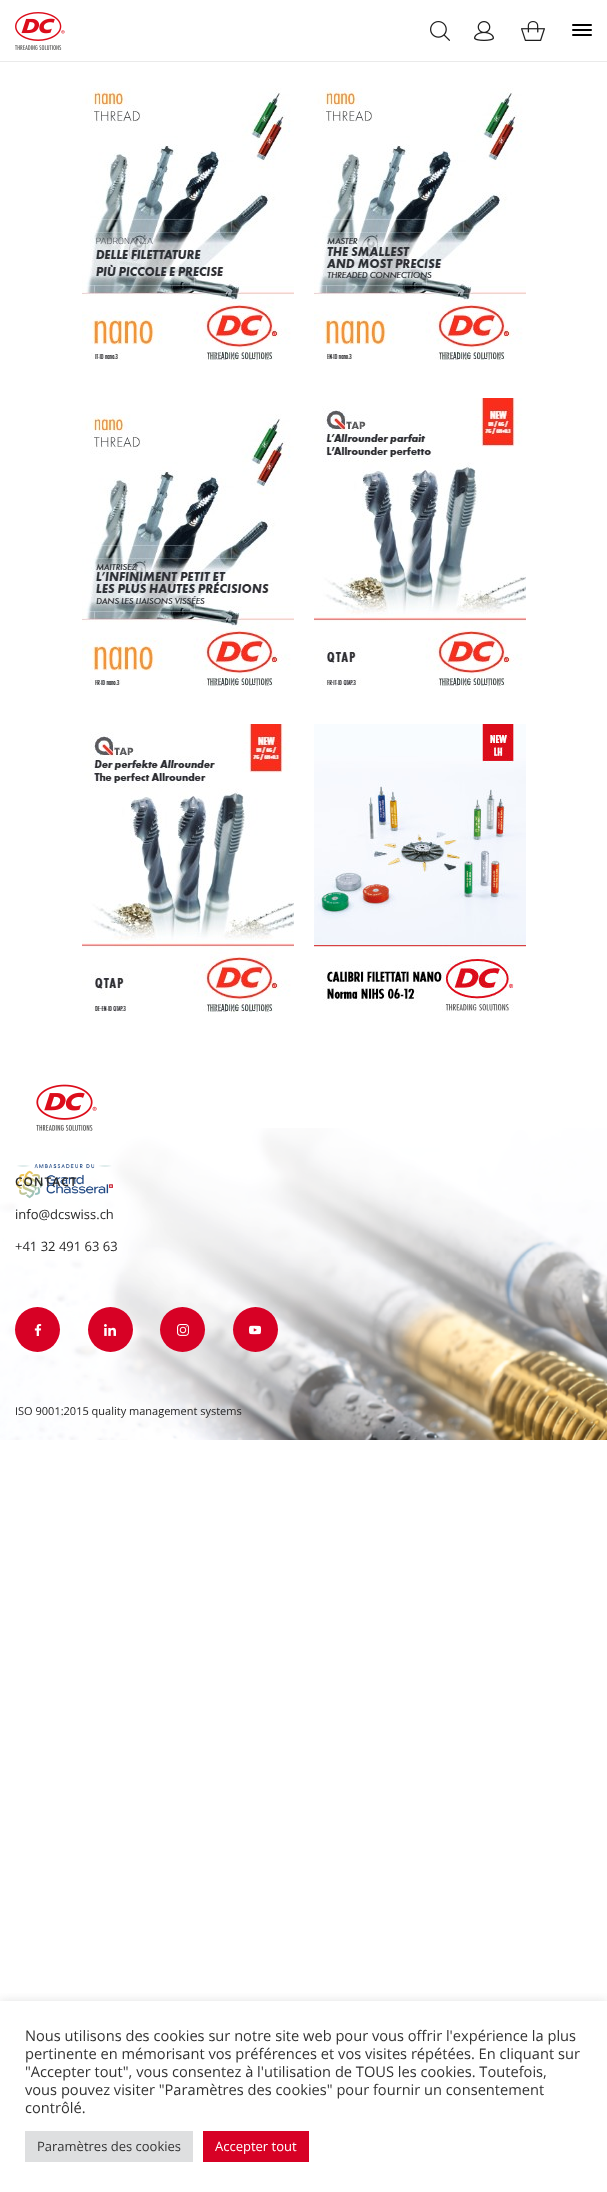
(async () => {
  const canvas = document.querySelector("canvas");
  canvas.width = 607;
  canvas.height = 2192;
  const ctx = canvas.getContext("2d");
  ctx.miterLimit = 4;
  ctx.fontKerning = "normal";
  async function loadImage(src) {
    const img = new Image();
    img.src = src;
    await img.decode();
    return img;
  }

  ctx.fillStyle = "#ffffff";
  ctx.fillRect(0, 0, 607, 2192);
  ctx.fillStyle = "#eaeaea";
  ctx.fillRect(0, 61, 607, 1);
  ctx.drawImage(await loadImage("img/1.png"), 15, 12, 50, 38);
  ctx.drawImage(await loadImage("img/2.png"), 430, 21, 20, 20);
  ctx.drawImage(await loadImage("img/3.png"), 474, 21, 20, 20);
  ctx.drawImage(await loadImage("img/4.png"), 521, 21, 24, 20);
  ctx.fillStyle = "#000000";
  ctx.beginPath();
  ctx.roundRect(572, 34, 20, 2, 1);
  ctx.fill();
  ctx.beginPath();
  ctx.roundRect(572, 24, 20, 2, 1);
  ctx.fill();
  ctx.beginPath();
  ctx.roundRect(572, 29, 20, 2, 1);
  ctx.fill();
  ctx.drawImage(await loadImage("img/5.png"), 82, 88, 212, 272);
  ctx.drawImage(await loadImage("img/6.png"), 314, 88, 212, 272);
  ctx.drawImage(await loadImage("img/7.png"), 82, 414, 212, 272);
  ctx.drawImage(await loadImage("img/8.png"), 314, 398, 212, 288);
  ctx.drawImage(await loadImage("img/9.png"), 82, 724, 212, 288);
  ctx.drawImage(await loadImage("img/10.png"), 314, 724, 212, 288);
  ctx.drawImage(await loadImage("img/11.png"), 0, 1128, 607, 312);
  ctx.drawImage(await loadImage("img/12.png"), 36, 1084, 61, 47);
  ctx.drawImage(await loadImage("img/13.png"), 15, 1164, 98, 35);
  ctx.fillStyle = "#d70125";
  ctx.beginPath();
  ctx.arc(37.5, 1329.5, 22.5, 0, Math.PI * 2);
  ctx.fill();
  ctx.drawImage(await loadImage("img/14.png"), 34, 1324, 8, 12);
  ctx.beginPath();
  ctx.arc(110.5, 1329.5, 22.5, 0, Math.PI * 2);
  ctx.fill();
  ctx.drawImage(await loadImage("img/15.png"), 104, 1324, 12, 12);
  ctx.beginPath();
  ctx.arc(182.5, 1329.5, 22.5, 0, Math.PI * 2);
  ctx.fill();
  ctx.drawImage(await loadImage("img/16.png"), 177, 1324, 12, 12);
  ctx.beginPath();
  ctx.arc(255.5, 1329.5, 22.5, 0, Math.PI * 2);
  ctx.fill();
  ctx.drawImage(await loadImage("img/17.png"), 249, 1325, 12, 10);
  ctx.save();
  ctx.beginPath();
  ctx.rect(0, 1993, 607, 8);
  ctx.clip();
  ctx.fillStyle = "rgba(172, 171, 171, 0.3)";
  ctx.filter = "blur(5px)";
  ctx.beginPath();
  ctx.rect(0, 2000, 607, 191);
  ctx.fill();
  ctx.filter = "none";
  ctx.restore();
  ctx.fillStyle = "#dedfe0";
  ctx.fillRect(25, 2131, 168, 31);
  ctx.fillStyle = "#d70125";
  ctx.fillRect(203, 2131, 106, 31);
  ctx.letterSpacing = "1px";
  ctx.font = "600 12px Open Sans";
  ctx.fillStyle = "#282828";
  ctx.fillText("CONTACT", 15, 1186);
  ctx.letterSpacing = "0px";
  ctx.font = "13px Open Sans";
  ctx.fillText("info@dcswiss.ch", 15, 1219);
  ctx.fillText("+41 32 491 63 63", 15, 1251);
  ctx.font = "11px Open Sans";
  ctx.fillStyle = "#1e1e1e";
  ctx.fillText("ISO 9001:2015 quality management systems", 15, 1415);
  ctx.font = "14.65px Open Sans";
  ctx.fillStyle = "#333333";
  for (const [text, x, y] of [
    ["Nous utilisons des cookies sur notre site web pour vous offrir l'expérience la plus", 25, 2041],
    ["pertinente en mémorisant vos préférences et vos visites répétées. En cliquant sur", 25, 2059],
    ["\"Accepter tout\", vous consentez à l'utilisation de TOUS les cookies. Toutefois,", 25, 2077],
    ["vous pouvez visiter \"Paramètres des cookies\" pour fournir un consentement", 25, 2095],
    ["contrôlé.", 25, 2113],
  ]) {
    ctx.fillText(text, x, y);
  }
  ctx.font = "13px Open Sans";
  ctx.fillText("Paramètres des cookies", 37, 2151);
  ctx.fillStyle = "#ffffff";
  ctx.fillText("Accepter tout", 215, 2151);
})();
